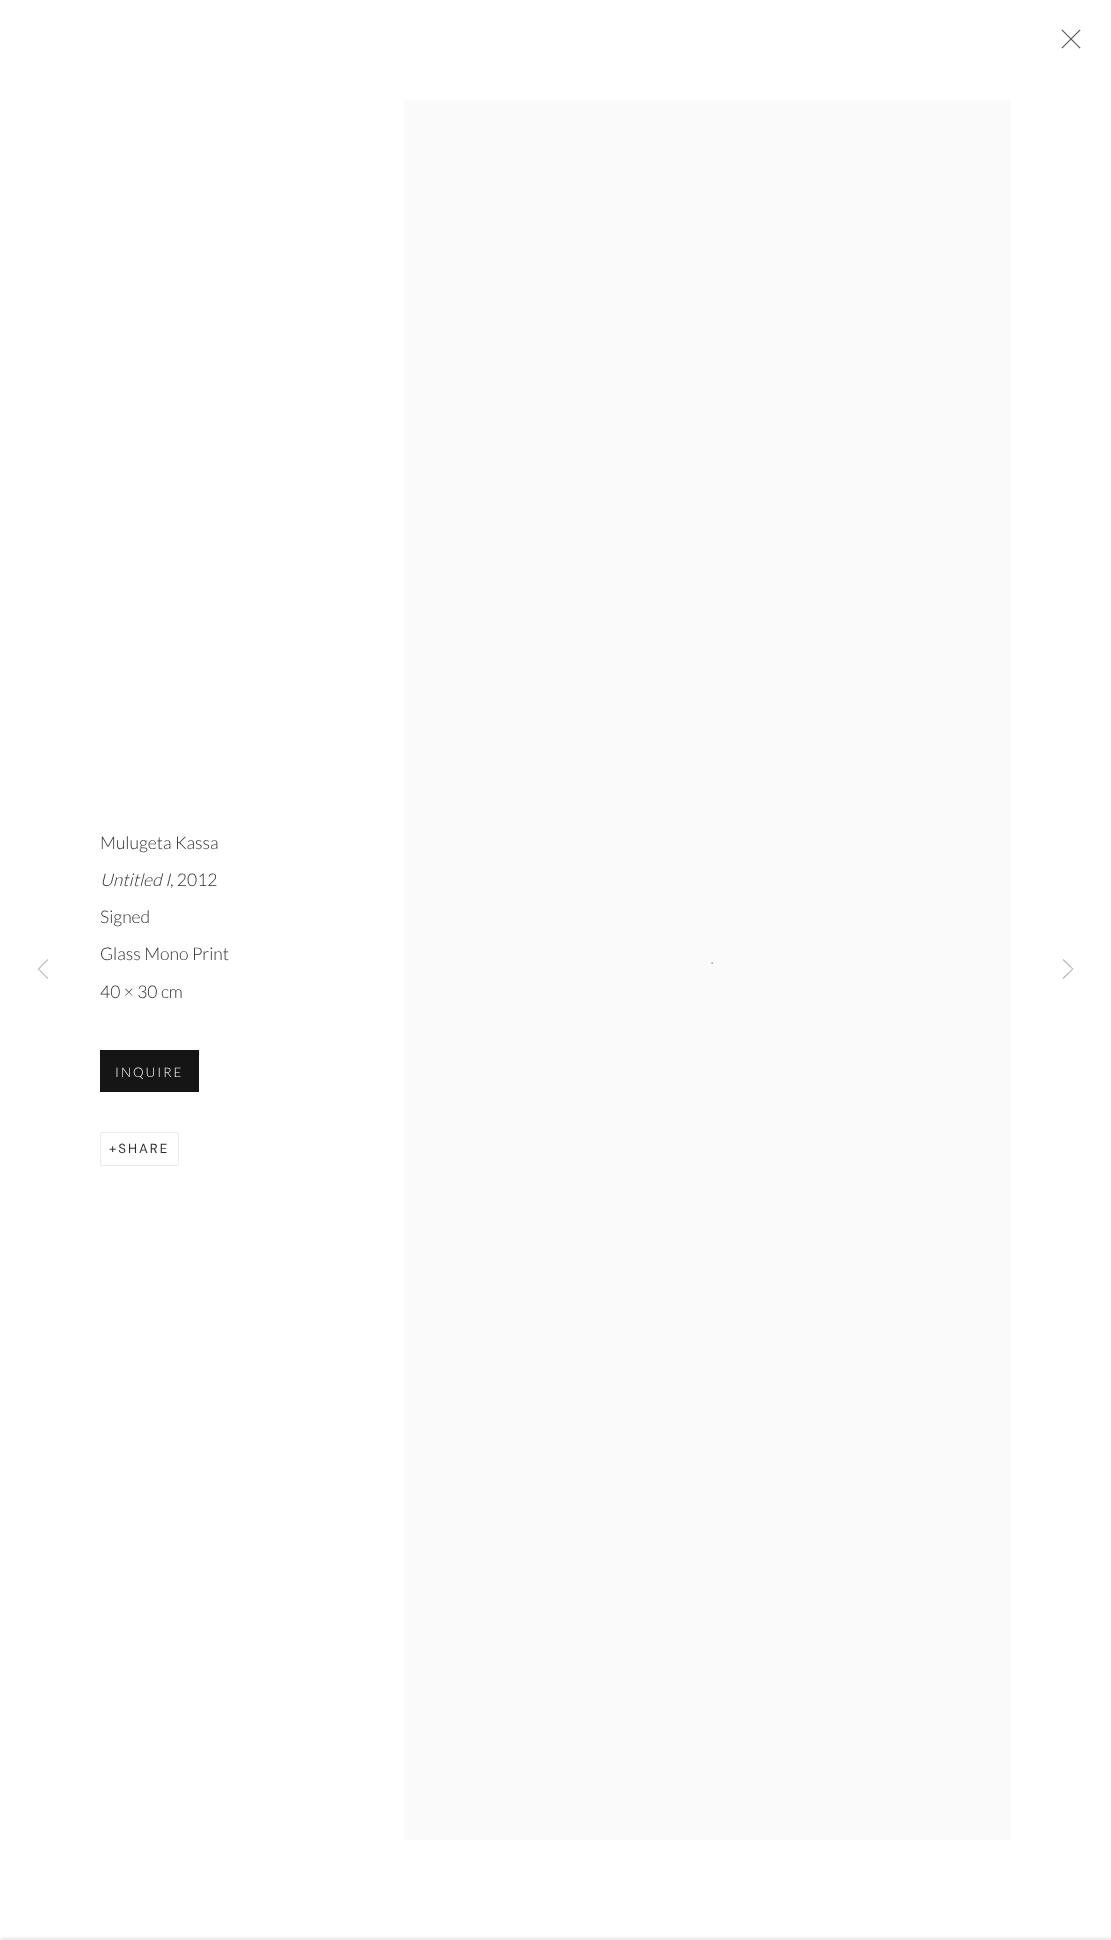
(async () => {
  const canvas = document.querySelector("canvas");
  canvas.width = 1111;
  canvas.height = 1940;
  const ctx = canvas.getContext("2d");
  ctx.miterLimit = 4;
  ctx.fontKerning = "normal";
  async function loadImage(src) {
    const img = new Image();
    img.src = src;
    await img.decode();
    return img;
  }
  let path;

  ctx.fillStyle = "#ffffff";
  ctx.fillRect(0, 0, 1111, 1940);
  ctx.drawImage(await loadImage("img/1.png"), 1061, 29, 20, 20);
  ctx.fillStyle = "#151515";
  ctx.fillRect(100, 1050, 99, 42);
  ctx.beginPath();
  ctx.roundRect(100.5, 1132.5, 78, 33, 1.5);
  ctx.strokeStyle = "#ebebeb";
  ctx.stroke();
  ctx.fillStyle = "#fafafa";
  ctx.fillRect(404, 100, 607, 1740);
  path = new Path2D("M712 963H712.5");
  ctx.strokeStyle = "#bbbbbb";
  ctx.lineWidth = 1.8;
  ctx.lineCap = "round";
  ctx.stroke(path);
  ctx.drawImage(await loadImage("img/2.png"), 38, 959, 11, 20);
  ctx.fillStyle = "#b9b9b9";
  path = new Path2D("M1073.5 969L1063.5 959L1062.5 960L1072 969L1062.5 978L1063.5 979Z");
  ctx.fill(path);
  ctx.fillStyle = "rgba(0, 0, 0, 0.23)";
  ctx.filter = "blur(2.5px)";
  ctx.beginPath();
  ctx.rect(0, 1940, 1111, 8);
  ctx.fill();
  ctx.filter = "none";
  ctx.font = "300 17.5px Lato";
  ctx.fillStyle = "#2f2f2f";
  ctx.fillText("Mulugeta Kassa", 100, 849);
  ctx.font = "italic 300 17.5px Lato";
  ctx.fillText("Untitled I", 100, 886);
  ctx.font = "300 17.5px Lato";
  for (const [text, x, y] of [
    [", 2012", 170, 886],
    ["Signed", 100, 923],
    ["Glass Mono Print", 100, 960],
    ["40 × 30 cm", 100, 998],
  ]) {
    ctx.fillText(text, x, y);
  }
  ctx.letterSpacing = "2px";
  ctx.font = "300 13.25px Lato";
  ctx.fillStyle = "#ffffff";
  ctx.fillText("INQUIRE", 115, 1077);
  ctx.font = "13.25px DM Sans";
  ctx.fillStyle = "#2f2f2f";
  ctx.fillText("+SHARE", 109, 1153);
})();
